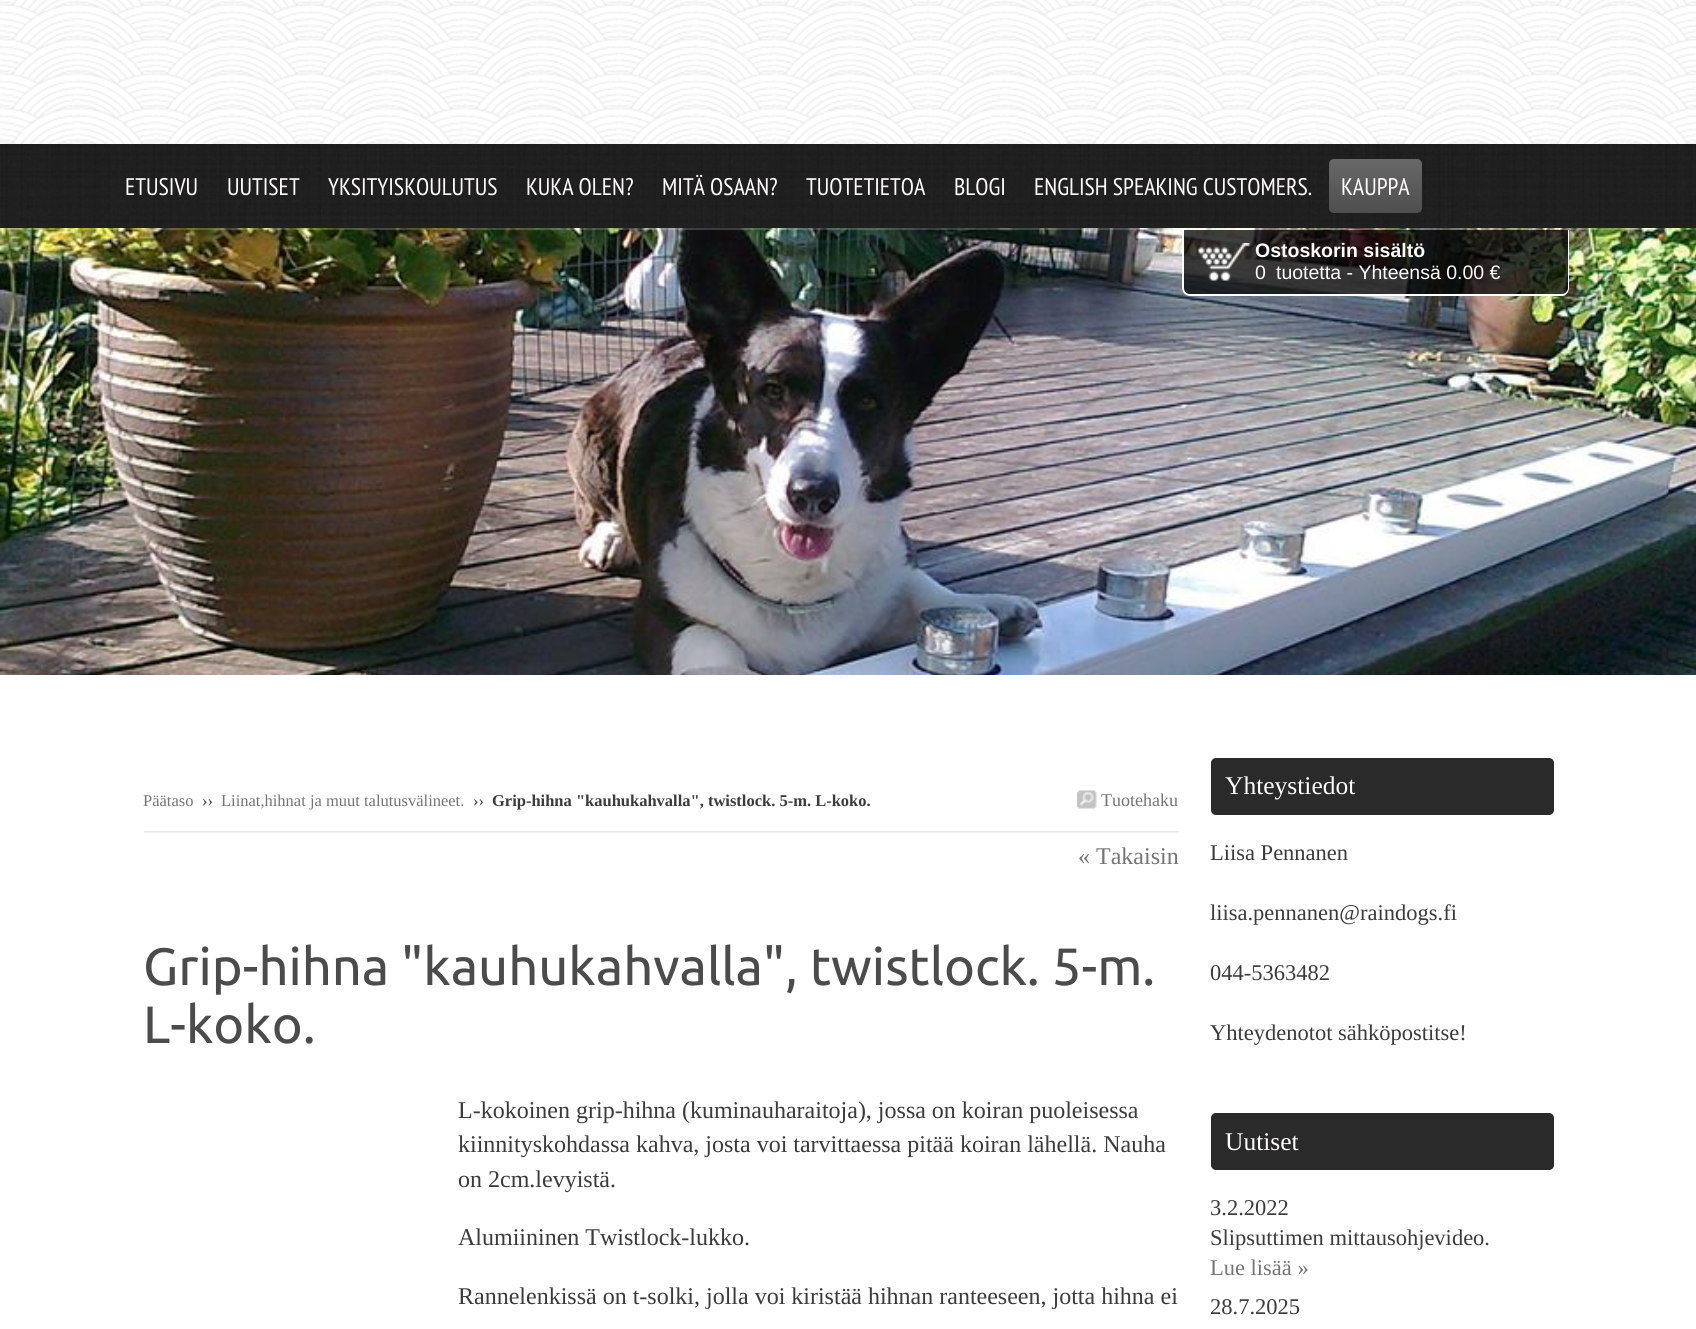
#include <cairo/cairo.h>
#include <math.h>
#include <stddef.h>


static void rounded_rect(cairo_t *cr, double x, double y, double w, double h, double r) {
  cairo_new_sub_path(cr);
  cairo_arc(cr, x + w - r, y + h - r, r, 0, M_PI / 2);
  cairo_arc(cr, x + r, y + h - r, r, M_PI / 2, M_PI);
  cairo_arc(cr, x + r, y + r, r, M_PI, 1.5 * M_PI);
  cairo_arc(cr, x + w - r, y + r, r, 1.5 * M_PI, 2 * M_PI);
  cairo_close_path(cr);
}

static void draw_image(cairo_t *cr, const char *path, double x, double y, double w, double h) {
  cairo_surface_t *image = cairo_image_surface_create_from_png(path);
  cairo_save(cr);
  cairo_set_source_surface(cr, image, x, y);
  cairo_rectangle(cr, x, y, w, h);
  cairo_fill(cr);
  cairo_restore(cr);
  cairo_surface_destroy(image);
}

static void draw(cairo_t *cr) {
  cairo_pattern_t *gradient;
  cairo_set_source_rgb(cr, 1, 1, 1);
  cairo_paint(cr);
  draw_image(cr, "images/1.png", 0, 144, 1696, 84);
  draw_image(cr, "images/2.png", 0, 0, 1696, 144);
  gradient = cairo_pattern_create_linear(1376, 159, 1376, 213);
  cairo_pattern_add_color_stop_rgba(gradient, 0, 104 / 255.0, 104 / 255.0, 104 / 255.0, 1);
  cairo_pattern_add_color_stop_rgba(gradient, 1, 78 / 255.0, 78 / 255.0, 78 / 255.0, 1);
  cairo_set_source(cr, gradient);
  cairo_pattern_destroy(gradient);
  rounded_rect(cr, 1329, 159, 93, 54, 5);
  cairo_fill(cr);
  draw_image(cr, "images/3.png", 0, 228, 1696, 447);
  cairo_set_source_rgba(cr, 1, 1, 1, 0.19);
  cairo_rectangle(cr, 0, 228, 1696, 2);
  cairo_fill(cr);
  cairo_set_source_rgba(cr, 0, 0, 0, 0.75);
  cairo_new_path(cr);
  cairo_move_to(cr, 1182, 230);
  cairo_line_to(cr, 1569, 230);
  cairo_line_to(cr, 1569, 288);
  cairo_curve_to(cr, 1569, 292.5, 1565.5, 296, 1561, 296);
  cairo_line_to(cr, 1190, 296);
  cairo_curve_to(cr, 1185.5, 296, 1182, 292.5, 1182, 288);
  cairo_close_path(cr);
  cairo_fill(cr);
  cairo_set_source_rgb(cr, 1, 1, 1);
  cairo_set_fill_rule(cr, CAIRO_FILL_RULE_EVEN_ODD);
  cairo_new_path(cr);
  cairo_move_to(cr, 1182, 230);
  cairo_line_to(cr, 1569, 230);
  cairo_line_to(cr, 1569, 288);
  cairo_curve_to(cr, 1569, 292, 1566, 296, 1562, 296);
  cairo_line_to(cr, 1190, 296);
  cairo_curve_to(cr, 1185, 296, 1182, 292, 1182, 288);
  cairo_close_path(cr);
  cairo_move_to(cr, 1184, 230);
  cairo_line_to(cr, 1568, 230);
  cairo_line_to(cr, 1568, 288);
  cairo_curve_to(cr, 1568, 291, 1565, 294, 1562, 294);
  cairo_line_to(cr, 1190, 294);
  cairo_curve_to(cr, 1186, 294, 1184, 291, 1184, 288);
  cairo_close_path(cr);
  cairo_fill(cr);
  draw_image(cr, "images/4.png", 1198, 243, 52, 38);
  draw_image(cr, "images/5.png", 1077, 790, 20, 19);
  draw_image(cr, "images/6.png", 144, 831, 1035, 2);
  cairo_set_source_rgb(cr, 42 / 255.0, 42 / 255.0, 42 / 255.0);
  rounded_rect(cr, 1211, 758, 343, 57, 5);
  cairo_fill(cr);
  rounded_rect(cr, 1211, 1113, 343, 57, 5);
  cairo_fill(cr);
  cairo_select_font_face(cr, "PT Sans Narrow", CAIRO_FONT_SLANT_NORMAL, CAIRO_FONT_WEIGHT_NORMAL);
  cairo_set_font_size(cr, 24);
  cairo_set_source_rgb(cr, 1, 252 / 255.0, 252 / 255.0);
  cairo_move_to(cr, 125, 195);
  cairo_show_text(cr, "ETUSIVU");
  cairo_move_to(cr, 227, 195);
  cairo_show_text(cr, "UUTISET");
  cairo_move_to(cr, 328, 195);
  cairo_show_text(cr, "YKSITYISKOULUTUS");
  cairo_move_to(cr, 526, 195);
  cairo_show_text(cr, "KUKA OLEN?");
  cairo_move_to(cr, 662, 195);
  cairo_show_text(cr, "MITÄ OSAAN?");
  cairo_move_to(cr, 806, 195);
  cairo_show_text(cr, "TUOTETIETOA");
  cairo_move_to(cr, 954, 195);
  cairo_show_text(cr, "BLOGI");
  cairo_move_to(cr, 1034, 195);
  cairo_show_text(cr, "ENGLISH SPEAKING CUSTOMERS.");
  cairo_move_to(cr, 1341, 195);
  cairo_show_text(cr, "KAUPPA");
  cairo_select_font_face(cr, "Liberation Sans", CAIRO_FONT_SLANT_NORMAL, CAIRO_FONT_WEIGHT_BOLD);
  cairo_set_font_size(cr, 19.5);
  cairo_move_to(cr, 1255, 257);
  cairo_show_text(cr, "Ostoskorin sisältö");
  cairo_select_font_face(cr, "Liberation Sans", CAIRO_FONT_SLANT_NORMAL, CAIRO_FONT_WEIGHT_NORMAL);
  cairo_move_to(cr, 1255, 279);
  cairo_show_text(cr, "0");
  cairo_move_to(cr, 1276, 279);
  cairo_show_text(cr, "tuotetta - Yhteensä 0.00 €");
  cairo_select_font_face(cr, "Liberation Serif", CAIRO_FONT_SLANT_NORMAL, CAIRO_FONT_WEIGHT_NORMAL);
  cairo_set_font_size(cr, 16.5);
  cairo_set_source_rgb(cr, 117 / 255.0, 117 / 255.0, 117 / 255.0);
  cairo_move_to(cr, 143, 806);
  cairo_show_text(cr, "Päätaso");
  cairo_set_source_rgb(cr, 59 / 255.0, 59 / 255.0, 59 / 255.0);
  cairo_move_to(cr, 202, 806);
  cairo_show_text(cr, "››");
  cairo_set_source_rgb(cr, 117 / 255.0, 117 / 255.0, 117 / 255.0);
  cairo_move_to(cr, 221, 806);
  cairo_show_text(cr, "Liinat,hihnat ja muut talutusvälineet.");
  cairo_set_source_rgb(cr, 59 / 255.0, 59 / 255.0, 59 / 255.0);
  cairo_move_to(cr, 473, 806);
  cairo_show_text(cr, "››");
  cairo_select_font_face(cr, "Liberation Serif", CAIRO_FONT_SLANT_NORMAL, CAIRO_FONT_WEIGHT_BOLD);
  cairo_move_to(cr, 492, 806);
  cairo_show_text(cr, "Grip-hihna \"kauhukahvalla\", twistlock. 5-m. L-koko.");
  cairo_select_font_face(cr, "Liberation Serif", CAIRO_FONT_SLANT_NORMAL, CAIRO_FONT_WEIGHT_NORMAL);
  cairo_set_font_size(cr, 18);
  cairo_set_source_rgb(cr, 117 / 255.0, 117 / 255.0, 117 / 255.0);
  cairo_move_to(cr, 1101, 806);
  cairo_show_text(cr, "Tuotehaku");
  cairo_set_font_size(cr, 24);
  cairo_move_to(cr, 1078, 864);
  cairo_show_text(cr, "« Takaisin");
  cairo_select_font_face(cr, "Ubuntu", CAIRO_FONT_SLANT_NORMAL, CAIRO_FONT_WEIGHT_NORMAL);
  cairo_set_font_size(cr, 52.5);
  cairo_set_source_rgb(cr, 75 / 255.0, 75 / 255.0, 75 / 255.0);
  cairo_move_to(cr, 143, 985);
  cairo_show_text(cr, "Grip-hihna \"kauhukahvalla\", twistlock. 5-m.");
  cairo_move_to(cr, 143, 1043);
  cairo_show_text(cr, "L-koko.");
  cairo_select_font_face(cr, "Liberation Serif", CAIRO_FONT_SLANT_NORMAL, CAIRO_FONT_WEIGHT_NORMAL);
  cairo_set_font_size(cr, 24);
  cairo_set_source_rgb(cr, 59 / 255.0, 59 / 255.0, 59 / 255.0);
  cairo_move_to(cr, 458, 1118);
  cairo_show_text(cr, "L-kokoinen grip-hihna (kuminauharaitoja), jossa on koiran puoleisessa");
  cairo_move_to(cr, 458, 1152);
  cairo_show_text(cr, "kiinnityskohdassa kahva, josta voi tarvittaessa pitää koiran lähellä. Nauha");
  cairo_move_to(cr, 458, 1187);
  cairo_show_text(cr, "on 2cm.levyistä.");
  cairo_move_to(cr, 458, 1245);
  cairo_show_text(cr, "Alumiininen Twistlock-lukko.");
  cairo_move_to(cr, 458, 1304);
  cairo_show_text(cr, "Rannelenkissä on t-solki, jolla voi kiristää hihnan ranteeseen, jotta hihna ei");
  cairo_set_font_size(cr, 25.5);
  cairo_set_source_rgb(cr, 1, 252 / 255.0, 252 / 255.0);
  cairo_move_to(cr, 1225, 794);
  cairo_show_text(cr, "Yhteystiedot");
  cairo_set_font_size(cr, 22.5);
  cairo_set_source_rgb(cr, 59 / 255.0, 59 / 255.0, 59 / 255.0);
  cairo_move_to(cr, 1210, 860);
  cairo_show_text(cr, "Liisa Pennanen");
  cairo_move_to(cr, 1210, 920);
  cairo_show_text(cr, "liisa.pennanen@raindogs.fi");
  cairo_move_to(cr, 1210, 980);
  cairo_show_text(cr, "044-5363482");
  cairo_move_to(cr, 1210, 1040);
  cairo_show_text(cr, "Yhteydenotot sähköpostitse!");
  cairo_set_font_size(cr, 25.5);
  cairo_set_source_rgb(cr, 1, 252 / 255.0, 252 / 255.0);
  cairo_move_to(cr, 1225, 1150);
  cairo_show_text(cr, "Uutiset");
  cairo_set_font_size(cr, 22.5);
  cairo_set_source_rgb(cr, 59 / 255.0, 59 / 255.0, 59 / 255.0);
  cairo_move_to(cr, 1210, 1215);
  cairo_show_text(cr, "3.2.2022");
  cairo_move_to(cr, 1210, 1245);
  cairo_show_text(cr, "Slipsuttimen mittausohjevideo.");
  cairo_set_source_rgb(cr, 117 / 255.0, 117 / 255.0, 117 / 255.0);
  cairo_move_to(cr, 1210, 1275);
  cairo_show_text(cr, "Lue lisää »");
  cairo_set_source_rgb(cr, 59 / 255.0, 59 / 255.0, 59 / 255.0);
  cairo_move_to(cr, 1210, 1314);
  cairo_show_text(cr, "28.7.2025");
}

int main(void) {
  cairo_surface_t *surface = cairo_image_surface_create(CAIRO_FORMAT_RGB24, 1696, 1329);
  cairo_t *cr = cairo_create(surface);
  cairo_font_options_t *options = cairo_font_options_create();
  cairo_font_options_set_hint_metrics(options, CAIRO_HINT_METRICS_OFF);
  cairo_font_options_set_hint_style(options, CAIRO_HINT_STYLE_NONE);
  cairo_set_font_options(cr, options);
  cairo_set_miter_limit(cr, 4);
  draw(cr);
  cairo_surface_write_to_png(surface, "out.png");
  cairo_font_options_destroy(options);
  cairo_destroy(cr);
  cairo_surface_destroy(surface);
  return 0;
}
